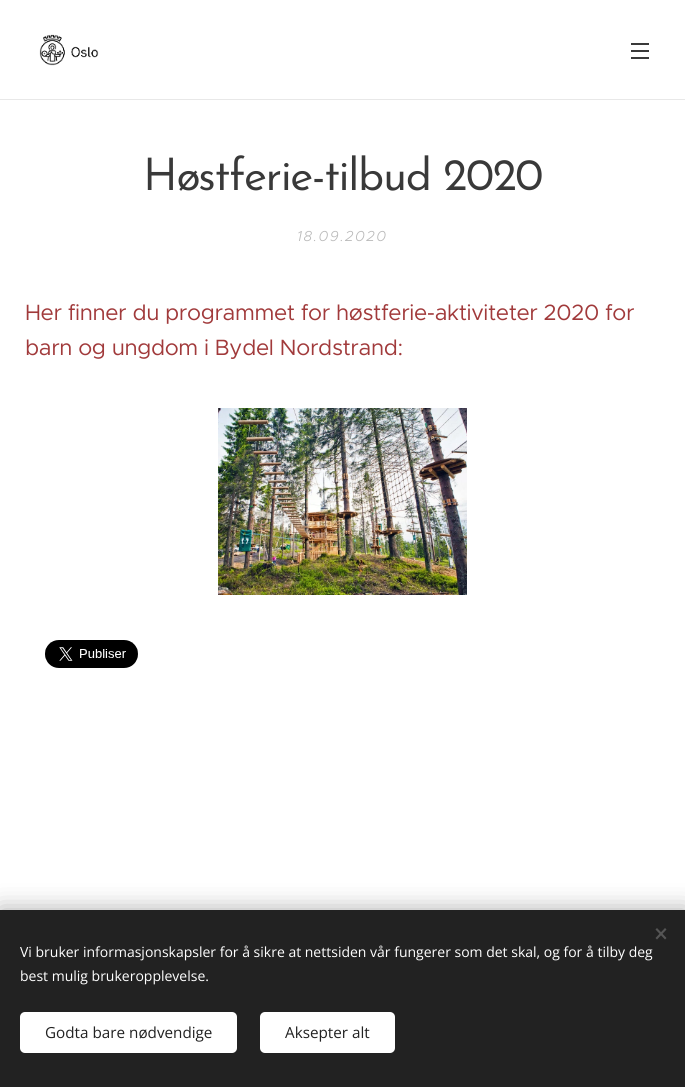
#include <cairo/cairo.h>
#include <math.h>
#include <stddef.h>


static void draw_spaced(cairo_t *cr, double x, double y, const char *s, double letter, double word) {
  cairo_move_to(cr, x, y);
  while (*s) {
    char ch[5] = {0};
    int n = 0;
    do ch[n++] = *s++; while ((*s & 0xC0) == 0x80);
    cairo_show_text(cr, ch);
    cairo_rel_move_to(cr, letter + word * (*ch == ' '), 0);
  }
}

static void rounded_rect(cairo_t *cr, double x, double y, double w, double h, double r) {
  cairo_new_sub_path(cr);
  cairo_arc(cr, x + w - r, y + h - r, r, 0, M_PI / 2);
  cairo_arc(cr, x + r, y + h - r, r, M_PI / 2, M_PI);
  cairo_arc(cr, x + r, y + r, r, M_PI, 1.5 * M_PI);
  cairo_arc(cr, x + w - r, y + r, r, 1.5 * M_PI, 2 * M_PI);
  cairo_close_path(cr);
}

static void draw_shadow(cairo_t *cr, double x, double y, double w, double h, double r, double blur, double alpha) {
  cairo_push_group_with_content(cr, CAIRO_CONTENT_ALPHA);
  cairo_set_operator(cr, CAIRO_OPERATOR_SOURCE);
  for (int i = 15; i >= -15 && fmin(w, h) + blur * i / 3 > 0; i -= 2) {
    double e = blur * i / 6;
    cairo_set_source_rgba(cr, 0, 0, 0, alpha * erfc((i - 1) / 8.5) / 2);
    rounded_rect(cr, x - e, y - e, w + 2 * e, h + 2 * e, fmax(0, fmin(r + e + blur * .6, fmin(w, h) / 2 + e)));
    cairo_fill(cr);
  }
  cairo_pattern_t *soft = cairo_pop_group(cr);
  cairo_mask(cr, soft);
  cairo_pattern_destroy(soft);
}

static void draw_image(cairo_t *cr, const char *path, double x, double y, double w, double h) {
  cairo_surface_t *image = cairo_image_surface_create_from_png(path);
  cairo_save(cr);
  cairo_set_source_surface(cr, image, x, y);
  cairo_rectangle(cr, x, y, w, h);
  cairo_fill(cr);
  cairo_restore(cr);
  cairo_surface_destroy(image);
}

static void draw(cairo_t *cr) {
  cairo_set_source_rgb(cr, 1, 1, 1);
  cairo_paint(cr);
  draw_image(cr, "images/1.png", 39, 34, 60, 32);
  cairo_set_source_rgb(cr, 57 / 255.0, 57 / 255.0, 57 / 255.0);
  cairo_rectangle(cr, 631, 50, 18, 2);
  cairo_fill(cr);
  cairo_rectangle(cr, 631, 43, 18, 2);
  cairo_fill(cr);
  cairo_rectangle(cr, 631, 57, 18, 2);
  cairo_fill(cr);
  cairo_set_source_rgb(cr, 232 / 255.0, 232 / 255.0, 232 / 255.0);
  cairo_rectangle(cr, 0, 99, 685, 1);
  cairo_fill(cr);
  draw_image(cr, "images/2.png", 218, 408, 249, 187);
  draw_image(cr, "images/3.png", 45, 640, 93, 28);
  cairo_set_source_rgb(cr, 0, 0, 0);
  draw_shadow(cr, 0, 910, 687, 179, 0, 12.5, 0.33);
  cairo_set_source_rgb(cr, 34 / 255.0, 34 / 255.0, 34 / 255.0);
  cairo_rectangle(cr, 0, 910, 685, 177);
  cairo_fill(cr);
  cairo_set_source_rgb(cr, 85 / 255.0, 85 / 255.0, 85 / 255.0);
  cairo_new_path(cr);
  cairo_move_to(cr, 655.5, 938);
  cairo_line_to(cr, 665, 928);
  cairo_line_to(cr, 666.5, 929.5);
  cairo_line_to(cr, 657, 939.5);
  cairo_close_path(cr);
  cairo_fill(cr);
  cairo_new_path(cr);
  cairo_move_to(cr, 657, 928);
  cairo_line_to(cr, 666.5, 938);
  cairo_line_to(cr, 665, 939.5);
  cairo_line_to(cr, 655.5, 929.5);
  cairo_close_path(cr);
  cairo_fill(cr);
  cairo_set_source_rgb(cr, 1, 1, 1);
  rounded_rect(cr, 20, 1012, 217, 41, 5);
  cairo_fill(cr);
  rounded_rect(cr, 260, 1012, 135, 41, 5);
  cairo_fill(cr);
  cairo_select_font_face(cr, "Josefin Sans", CAIRO_FONT_SLANT_NORMAL, CAIRO_FONT_WEIGHT_NORMAL);
  cairo_set_font_size(cr, 45);
  cairo_set_source_rgb(cr, 57 / 255.0, 57 / 255.0, 57 / 255.0);
  draw_spaced(cr, 143, 190, "Høstferie-tilbud 2020", -1.35, 0);
  cairo_select_font_face(cr, "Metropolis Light", CAIRO_FONT_SLANT_ITALIC, CAIRO_FONT_WEIGHT_NORMAL);
  cairo_set_font_size(cr, 14.5);
  cairo_set_source_rgb(cr, 186 / 255.0, 186 / 255.0, 186 / 255.0);
  draw_spaced(cr, 297, 241, "18.09.2020", 1.5, 0);
  cairo_select_font_face(cr, "Metropolis", CAIRO_FONT_SLANT_NORMAL, CAIRO_FONT_WEIGHT_NORMAL);
  cairo_set_font_size(cr, 22.2);
  cairo_set_source_rgb(cr, 161 / 255.0, 58 / 255.0, 59 / 255.0);
  draw_spaced(cr, 25, 320, "Her finner du programmet for høstferie-aktiviteter 2020 for", -0.37, 0);
  draw_spaced(cr, 25, 355, "barn og ungdom i Bydel Nordstrand:", -0.37, 0);
  cairo_select_font_face(cr, "Open Sans", CAIRO_FONT_SLANT_NORMAL, CAIRO_FONT_WEIGHT_NORMAL);
  cairo_set_font_size(cr, 14);
  cairo_set_source_rgb(cr, 1, 1, 1);
  cairo_move_to(cr, 20, 957);
  cairo_show_text(cr, "Vi bruker informasjonskapsler for å sikre at nettsiden vår fungerer som det skal, og for å tilby deg");
  cairo_move_to(cr, 20, 981);
  cairo_show_text(cr, "best mulig brukeropplevelse.");
  cairo_set_font_size(cr, 15.25);
  cairo_set_source_rgb(cr, 34 / 255.0, 34 / 255.0, 34 / 255.0);
  cairo_move_to(cr, 45, 1038);
  cairo_show_text(cr, "Godta bare nødvendige");
  cairo_move_to(cr, 285, 1038);
  cairo_show_text(cr, "Aksepter alt");
}

int main(void) {
  cairo_surface_t *surface = cairo_image_surface_create(CAIRO_FORMAT_RGB24, 685, 1087);
  cairo_t *cr = cairo_create(surface);
  cairo_font_options_t *options = cairo_font_options_create();
  cairo_font_options_set_hint_metrics(options, CAIRO_HINT_METRICS_OFF);
  cairo_font_options_set_hint_style(options, CAIRO_HINT_STYLE_NONE);
  cairo_set_font_options(cr, options);
  cairo_set_miter_limit(cr, 4);
  draw(cr);
  cairo_surface_write_to_png(surface, "out.png");
  cairo_font_options_destroy(options);
  cairo_destroy(cr);
  cairo_surface_destroy(surface);
  return 0;
}
